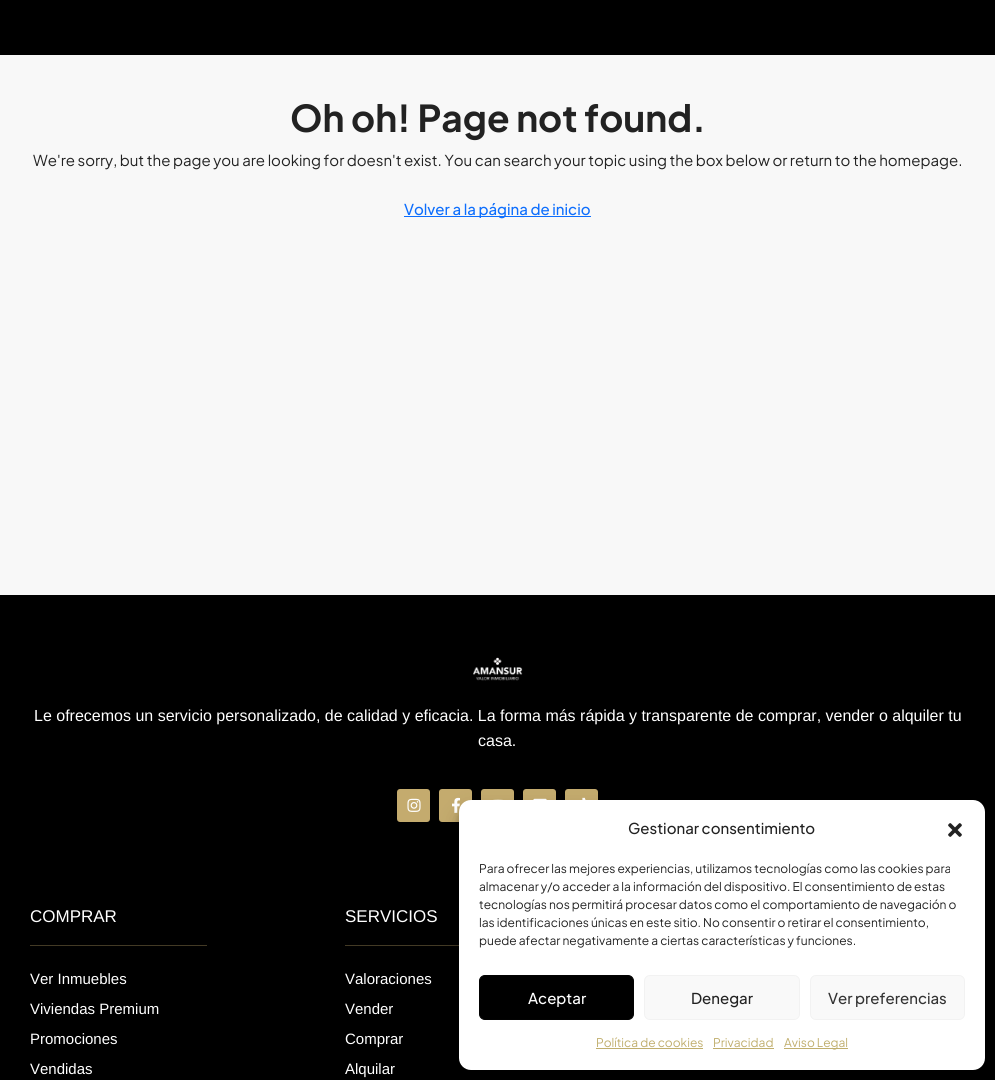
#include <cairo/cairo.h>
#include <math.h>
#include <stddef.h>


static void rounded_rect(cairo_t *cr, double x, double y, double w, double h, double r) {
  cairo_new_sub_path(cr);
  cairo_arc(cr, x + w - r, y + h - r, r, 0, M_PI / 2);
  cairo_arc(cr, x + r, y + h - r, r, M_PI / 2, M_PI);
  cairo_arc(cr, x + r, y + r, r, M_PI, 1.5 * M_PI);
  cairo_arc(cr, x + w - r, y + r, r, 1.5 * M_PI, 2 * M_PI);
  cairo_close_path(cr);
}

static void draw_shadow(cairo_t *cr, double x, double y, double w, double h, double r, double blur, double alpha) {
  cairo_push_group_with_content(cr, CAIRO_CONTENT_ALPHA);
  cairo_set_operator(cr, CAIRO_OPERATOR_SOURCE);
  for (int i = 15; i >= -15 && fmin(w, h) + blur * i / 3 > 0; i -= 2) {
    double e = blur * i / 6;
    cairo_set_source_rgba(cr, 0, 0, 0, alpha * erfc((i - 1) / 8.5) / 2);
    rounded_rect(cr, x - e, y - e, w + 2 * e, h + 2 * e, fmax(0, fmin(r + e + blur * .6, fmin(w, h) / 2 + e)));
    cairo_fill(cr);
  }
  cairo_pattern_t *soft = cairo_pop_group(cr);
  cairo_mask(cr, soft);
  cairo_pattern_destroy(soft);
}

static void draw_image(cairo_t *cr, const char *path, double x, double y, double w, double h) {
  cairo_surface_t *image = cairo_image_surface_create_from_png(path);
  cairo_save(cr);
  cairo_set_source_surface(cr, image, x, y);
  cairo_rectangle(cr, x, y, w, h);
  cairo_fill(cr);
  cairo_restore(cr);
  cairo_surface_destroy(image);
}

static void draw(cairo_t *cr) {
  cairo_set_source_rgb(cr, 248 / 255.0, 248 / 255.0, 248 / 255.0);
  cairo_paint(cr);
  cairo_set_source_rgb(cr, 0, 0, 0);
  cairo_rectangle(cr, 0, 0, 995, 55);
  cairo_fill(cr);
  cairo_set_source_rgb(cr, 13 / 255.0, 110 / 255.0, 253 / 255.0);
  cairo_rectangle(cr, 404, 216, 187, 1);
  cairo_fill(cr);
  cairo_set_source_rgb(cr, 0, 0, 0);
  cairo_rectangle(cr, 0, 595, 995, 485);
  cairo_fill(cr);
  draw_image(cr, "images/1.png", 473, 657, 50, 24);
  cairo_set_source_rgb(cr, 196 / 255.0, 171 / 255.0, 110 / 255.0);
  rounded_rect(cr, 397, 789, 33, 33, 3);
  cairo_fill(cr);
  draw_image(cr, "images/2.png", 407, 798, 14, 14);
  rounded_rect(cr, 439, 789, 33, 33, 3);
  cairo_fill(cr);
  draw_image(cr, "images/3.png", 452, 797, 8, 16);
  rounded_rect(cr, 481, 789, 33, 33, 3);
  cairo_fill(cr);
  draw_image(cr, "images/4.png", 493, 799, 10, 1);
  rounded_rect(cr, 523, 789, 33, 33, 3);
  cairo_fill(cr);
  draw_image(cr, "images/5.png", 533, 798, 14, 2);
  rounded_rect(cr, 565, 789, 33, 33, 3);
  cairo_fill(cr);
  draw_image(cr, "images/6.png", 582, 797, 4, 3);
  cairo_set_source_rgb(cr, 67 / 255.0, 58 / 255.0, 37 / 255.0);
  cairo_rectangle(cr, 30, 945, 177, 1);
  cairo_fill(cr);
  cairo_rectangle(cr, 345, 945, 114, 1);
  cairo_fill(cr);
  cairo_set_source_rgb(cr, 0, 0, 0);
  draw_shadow(cr, 459, 806, 526, 270, 12, 3, 0.23);
  draw_shadow(cr, 459, 810, 526, 270, 12, 10, 0.19);
  cairo_set_source_rgb(cr, 1, 1, 1);
  rounded_rect(cr, 459, 800, 526, 270, 12);
  cairo_fill(cr);
  draw_image(cr, "images/7.png", 948, 823, 14, 14);
  cairo_set_source_rgb(cr, 0, 0, 0);
  rounded_rect(cr, 479.5, 975.5, 154, 44, 5.5);
  cairo_fill_preserve(cr);
  cairo_set_source_rgb(cr, 2 / 255.0, 2 / 255.0, 2 / 255.0);
  cairo_set_line_width(cr, 1);
  cairo_stroke(cr);
  cairo_set_source_rgb(cr, 249 / 255.0, 249 / 255.0, 249 / 255.0);
  rounded_rect(cr, 644.5, 975.5, 155, 44, 5.5);
  cairo_fill_preserve(cr);
  cairo_set_source_rgb(cr, 242 / 255.0, 242 / 255.0, 242 / 255.0);
  cairo_stroke(cr);
  cairo_set_source_rgb(cr, 249 / 255.0, 249 / 255.0, 249 / 255.0);
  rounded_rect(cr, 810.5, 975.5, 154, 44, 5.5);
  cairo_fill_preserve(cr);
  cairo_set_source_rgb(cr, 242 / 255.0, 242 / 255.0, 242 / 255.0);
  cairo_stroke(cr);
  cairo_set_source_rgb(cr, 192 / 255.0, 174 / 255.0, 109 / 255.0);
  cairo_rectangle(cr, 596, 1048, 107, 1);
  cairo_fill(cr);
  cairo_rectangle(cr, 713, 1048, 61, 1);
  cairo_fill(cr);
  cairo_rectangle(cr, 784, 1048, 64, 1);
  cairo_fill(cr);
  cairo_select_font_face(cr, "Plus Jakarta Sans", CAIRO_FONT_SLANT_NORMAL, CAIRO_FONT_WEIGHT_BOLD);
  cairo_set_font_size(cr, 37);
  cairo_set_source_rgb(cr, 34 / 255.0, 34 / 255.0, 34 / 255.0);
  cairo_move_to(cr, 290, 132);
  cairo_show_text(cr, "Oh oh! Page not found.");
  cairo_select_font_face(cr, "Plus Jakarta Sans", CAIRO_FONT_SLANT_NORMAL, CAIRO_FONT_WEIGHT_NORMAL);
  cairo_set_font_size(cr, 15);
  cairo_move_to(cr, 33, 166);
  cairo_show_text(cr, "We're sorry, but the page you are looking for doesn't exist. You can search your topic using the box below or return to the homepage.");
  cairo_select_font_face(cr, "Plus Jakarta Sans Medium", CAIRO_FONT_SLANT_NORMAL, CAIRO_FONT_WEIGHT_NORMAL);
  cairo_set_source_rgb(cr, 13 / 255.0, 110 / 255.0, 253 / 255.0);
  cairo_move_to(cr, 404, 215);
  cairo_show_text(cr, "Volver a la página de inicio");
  cairo_select_font_face(cr, "Liberation Sans", CAIRO_FONT_SLANT_NORMAL, CAIRO_FONT_WEIGHT_NORMAL);
  cairo_set_font_size(cr, 16);
  cairo_set_source_rgb(cr, 1, 1, 1);
  cairo_move_to(cr, 34, 721);
  cairo_show_text(cr, "Le ofrecemos un servicio personalizado, de calidad y eficacia. La forma más rápida y transparente de comprar, vender o alquiler tu");
  cairo_move_to(cr, 478, 746);
  cairo_show_text(cr, "casa.");
  cairo_set_font_size(cr, 17);
  cairo_move_to(cr, 30, 922);
  cairo_show_text(cr, "COMPRAR");
  cairo_set_font_size(cr, 15);
  cairo_move_to(cr, 30, 984);
  cairo_show_text(cr, "Ver Inmuebles");
  cairo_move_to(cr, 30, 1014);
  cairo_show_text(cr, "Viviendas Premium");
  cairo_move_to(cr, 30, 1044);
  cairo_show_text(cr, "Promociones");
  cairo_move_to(cr, 30, 1074);
  cairo_show_text(cr, "Vendidas");
  cairo_set_font_size(cr, 17);
  cairo_move_to(cr, 345, 922);
  cairo_show_text(cr, "SERVICIOS");
  cairo_set_font_size(cr, 15);
  cairo_move_to(cr, 345, 984);
  cairo_show_text(cr, "Valoraciones");
  cairo_move_to(cr, 345, 1014);
  cairo_show_text(cr, "Vender");
  cairo_move_to(cr, 345, 1044);
  cairo_show_text(cr, "Comprar");
  cairo_move_to(cr, 345, 1074);
  cairo_show_text(cr, "Alquilar");
  cairo_select_font_face(cr, "Plus Jakarta Sans Medium", CAIRO_FONT_SLANT_NORMAL, CAIRO_FONT_WEIGHT_NORMAL);
  cairo_set_source_rgb(cr, 34 / 255.0, 34 / 255.0, 34 / 255.0);
  cairo_move_to(cr, 628, 834);
  cairo_show_text(cr, "Gestionar consentimiento");
  cairo_select_font_face(cr, "Plus Jakarta Sans", CAIRO_FONT_SLANT_NORMAL, CAIRO_FONT_WEIGHT_NORMAL);
  cairo_set_font_size(cr, 12);
  cairo_move_to(cr, 479, 873);
  cairo_show_text(cr, "Para ofrecer las mejores experiencias, utilizamos tecnologías como las cookies para");
  cairo_move_to(cr, 479, 891);
  cairo_show_text(cr, "almacenar y/o acceder a la información del dispositivo. El consentimiento de estas");
  cairo_move_to(cr, 479, 909);
  cairo_show_text(cr, "tecnologías nos permitirá procesar datos como el comportamiento de navegación o");
  cairo_move_to(cr, 479, 927);
  cairo_show_text(cr, "las identificaciones únicas en este sitio. No consentir o retirar el consentimiento,");
  cairo_move_to(cr, 479, 945);
  cairo_show_text(cr, "puede afectar negativamente a ciertas características y funciones.");
  cairo_select_font_face(cr, "Plus Jakarta Sans Medium", CAIRO_FONT_SLANT_NORMAL, CAIRO_FONT_WEIGHT_NORMAL);
  cairo_set_font_size(cr, 15);
  cairo_set_source_rgb(cr, 1, 1, 1);
  cairo_move_to(cr, 528, 1004);
  cairo_show_text(cr, "Aceptar");
  cairo_set_source_rgb(cr, 34 / 255.0, 34 / 255.0, 34 / 255.0);
  cairo_move_to(cr, 691, 1004);
  cairo_show_text(cr, "Denegar");
  cairo_set_source_rgb(cr, 51 / 255.0, 51 / 255.0, 51 / 255.0);
  cairo_move_to(cr, 828, 1004);
  cairo_show_text(cr, "Ver preferencias");
  cairo_select_font_face(cr, "Plus Jakarta Sans", CAIRO_FONT_SLANT_NORMAL, CAIRO_FONT_WEIGHT_NORMAL);
  cairo_set_font_size(cr, 12);
  cairo_set_source_rgb(cr, 192 / 255.0, 174 / 255.0, 109 / 255.0);
  cairo_move_to(cr, 596, 1047);
  cairo_show_text(cr, "Política de cookies");
  cairo_move_to(cr, 713, 1047);
  cairo_show_text(cr, "Privacidad");
  cairo_move_to(cr, 784, 1047);
  cairo_show_text(cr, "Aviso Legal");
}

int main(void) {
  cairo_surface_t *surface = cairo_image_surface_create(CAIRO_FORMAT_RGB24, 995, 1080);
  cairo_t *cr = cairo_create(surface);
  cairo_font_options_t *options = cairo_font_options_create();
  cairo_font_options_set_hint_metrics(options, CAIRO_HINT_METRICS_OFF);
  cairo_font_options_set_hint_style(options, CAIRO_HINT_STYLE_NONE);
  cairo_set_font_options(cr, options);
  cairo_set_miter_limit(cr, 4);
  draw(cr);
  cairo_surface_write_to_png(surface, "out.png");
  cairo_font_options_destroy(options);
  cairo_destroy(cr);
  cairo_surface_destroy(surface);
  return 0;
}
